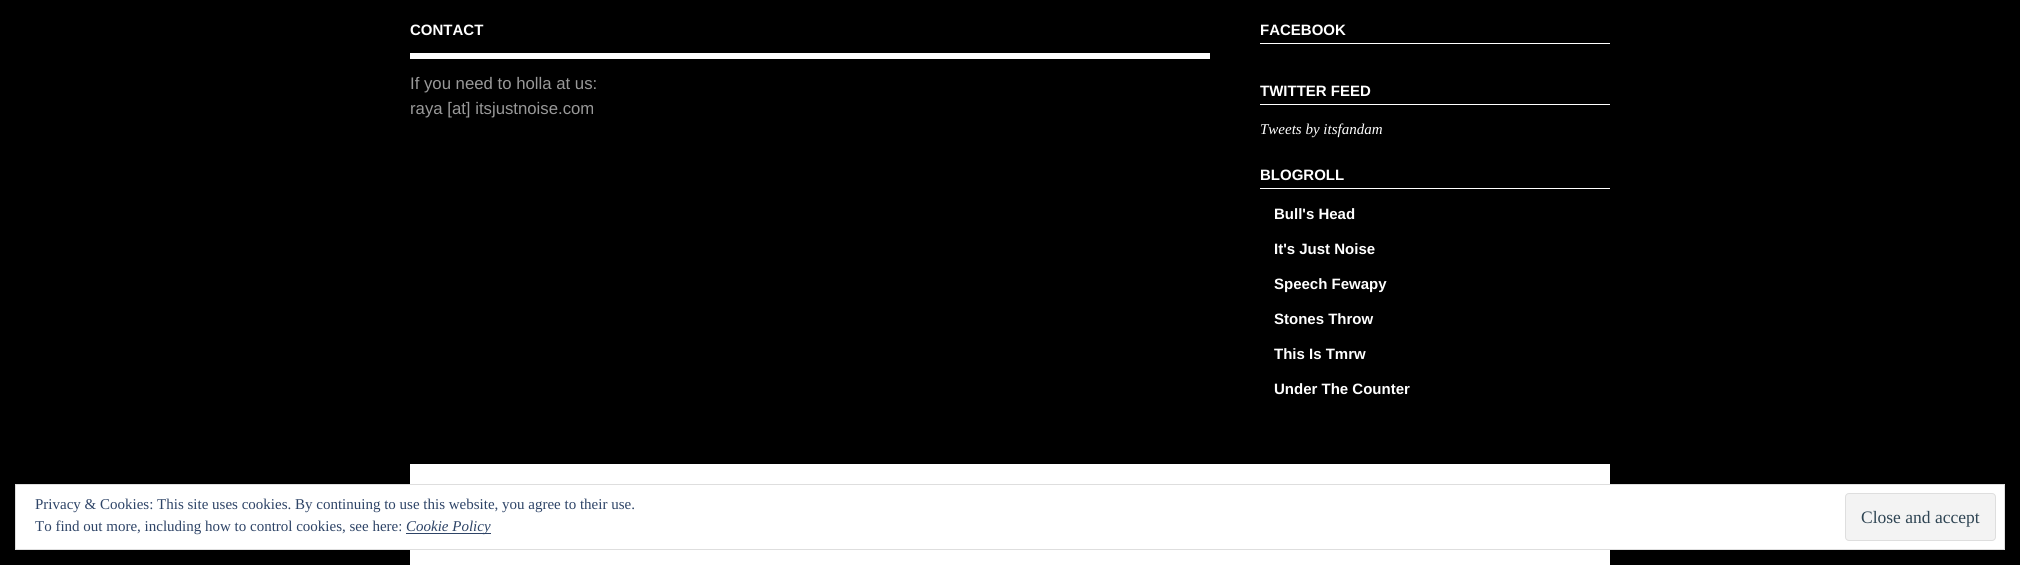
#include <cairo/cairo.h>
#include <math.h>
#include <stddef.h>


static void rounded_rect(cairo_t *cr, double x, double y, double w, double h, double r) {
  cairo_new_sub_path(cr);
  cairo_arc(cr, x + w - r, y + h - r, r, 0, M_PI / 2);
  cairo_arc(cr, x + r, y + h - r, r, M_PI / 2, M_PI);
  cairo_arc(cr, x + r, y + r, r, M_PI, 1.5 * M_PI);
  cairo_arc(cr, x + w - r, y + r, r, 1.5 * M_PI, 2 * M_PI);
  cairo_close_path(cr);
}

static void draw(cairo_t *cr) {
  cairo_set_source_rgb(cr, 0, 0, 0);
  cairo_paint(cr);
  cairo_set_source_rgb(cr, 1, 1, 1);
  cairo_rectangle(cr, 410, 53, 800, 6);
  cairo_fill(cr);
  cairo_rectangle(cr, 1260, 43, 350, 1);
  cairo_fill(cr);
  cairo_rectangle(cr, 1260, 104, 350, 1);
  cairo_fill(cr);
  cairo_rectangle(cr, 1260, 188, 350, 1);
  cairo_fill(cr);
  cairo_rectangle(cr, 410, 464, 1200, 20);
  cairo_fill(cr);
  cairo_rectangle(cr, 410, 550, 1200, 15);
  cairo_fill(cr);
  cairo_rectangle(cr, 15.5, 484.5, 1989, 65);
  cairo_fill_preserve(cr);
  cairo_set_source_rgb(cr, 222 / 255.0, 222 / 255.0, 222 / 255.0);
  cairo_set_line_width(cr, 1);
  cairo_stroke(cr);
  cairo_set_source_rgb(cr, 46 / 255.0, 68 / 255.0, 103 / 255.0);
  cairo_rectangle(cr, 406, 533, 85, 1);
  cairo_fill(cr);
  cairo_set_source_rgb(cr, 243 / 255.0, 243 / 255.0, 243 / 255.0);
  rounded_rect(cr, 1845.5, 493.5, 150, 47, 3.5);
  cairo_fill_preserve(cr);
  cairo_set_source_rgb(cr, 222 / 255.0, 222 / 255.0, 222 / 255.0);
  cairo_stroke(cr);
  cairo_select_font_face(cr, "Liberation Sans", CAIRO_FONT_SLANT_NORMAL, CAIRO_FONT_WEIGHT_BOLD);
  cairo_set_font_size(cr, 15);
  cairo_set_source_rgb(cr, 1, 1, 1);
  cairo_move_to(cr, 410, 35);
  cairo_show_text(cr, "CONTACT");
  cairo_select_font_face(cr, "Liberation Sans", CAIRO_FONT_SLANT_NORMAL, CAIRO_FONT_WEIGHT_NORMAL);
  cairo_set_font_size(cr, 16.75);
  cairo_set_source_rgb(cr, 153 / 255.0, 153 / 255.0, 153 / 255.0);
  cairo_move_to(cr, 410, 89);
  cairo_show_text(cr, "If you need to holla at us:");
  cairo_move_to(cr, 410, 114);
  cairo_show_text(cr, "raya [at] itsjustnoise.com");
  cairo_select_font_face(cr, "Liberation Sans", CAIRO_FONT_SLANT_NORMAL, CAIRO_FONT_WEIGHT_BOLD);
  cairo_set_font_size(cr, 15);
  cairo_set_source_rgb(cr, 1, 1, 1);
  cairo_move_to(cr, 1260, 35);
  cairo_show_text(cr, "FACEBOOK");
  cairo_move_to(cr, 1260, 96);
  cairo_show_text(cr, "TWITTER FEED");
  cairo_select_font_face(cr, "Liberation Serif", CAIRO_FONT_SLANT_ITALIC, CAIRO_FONT_WEIGHT_NORMAL);
  cairo_move_to(cr, 1260, 134);
  cairo_show_text(cr, "Tweets by itsfandam");
  cairo_select_font_face(cr, "Liberation Sans", CAIRO_FONT_SLANT_NORMAL, CAIRO_FONT_WEIGHT_BOLD);
  cairo_move_to(cr, 1260, 180);
  cairo_show_text(cr, "BLOGROLL");
  cairo_move_to(cr, 1274, 219);
  cairo_show_text(cr, "Bull's Head");
  cairo_move_to(cr, 1274, 254);
  cairo_show_text(cr, "It's Just Noise");
  cairo_move_to(cr, 1274, 289);
  cairo_show_text(cr, "Speech Fewapy");
  cairo_move_to(cr, 1274, 324);
  cairo_show_text(cr, "Stones Throw");
  cairo_move_to(cr, 1274, 359);
  cairo_show_text(cr, "This Is Tmrw");
  cairo_move_to(cr, 1274, 394);
  cairo_show_text(cr, "Under The Counter");
  cairo_select_font_face(cr, "Liberation Serif", CAIRO_FONT_SLANT_NORMAL, CAIRO_FONT_WEIGHT_NORMAL);
  cairo_set_source_rgb(cr, 46 / 255.0, 68 / 255.0, 103 / 255.0);
  cairo_move_to(cr, 35, 509);
  cairo_show_text(cr, "Privacy & Cookies: This site uses cookies. By continuing to use this website, you agree to their use.");
  cairo_move_to(cr, 35, 531);
  cairo_show_text(cr, "To find out more, including how to control cookies, see here:");
  cairo_select_font_face(cr, "Liberation Serif", CAIRO_FONT_SLANT_ITALIC, CAIRO_FONT_WEIGHT_NORMAL);
  cairo_move_to(cr, 406, 531);
  cairo_show_text(cr, "Cookie Policy");
  cairo_select_font_face(cr, "Liberation Serif", CAIRO_FONT_SLANT_NORMAL, CAIRO_FONT_WEIGHT_NORMAL);
  cairo_set_font_size(cr, 17.5);
  cairo_set_source_rgb(cr, 46 / 255.0, 68 / 255.0, 83 / 255.0);
  cairo_move_to(cr, 1861, 523);
  cairo_show_text(cr, "Close and accept");
}

int main(void) {
  cairo_surface_t *surface = cairo_image_surface_create(CAIRO_FORMAT_RGB24, 2020, 565);
  cairo_t *cr = cairo_create(surface);
  cairo_font_options_t *options = cairo_font_options_create();
  cairo_font_options_set_hint_metrics(options, CAIRO_HINT_METRICS_OFF);
  cairo_font_options_set_hint_style(options, CAIRO_HINT_STYLE_NONE);
  cairo_set_font_options(cr, options);
  cairo_set_miter_limit(cr, 4);
  draw(cr);
  cairo_surface_write_to_png(surface, "out.png");
  cairo_font_options_destroy(options);
  cairo_destroy(cr);
  cairo_surface_destroy(surface);
  return 0;
}
